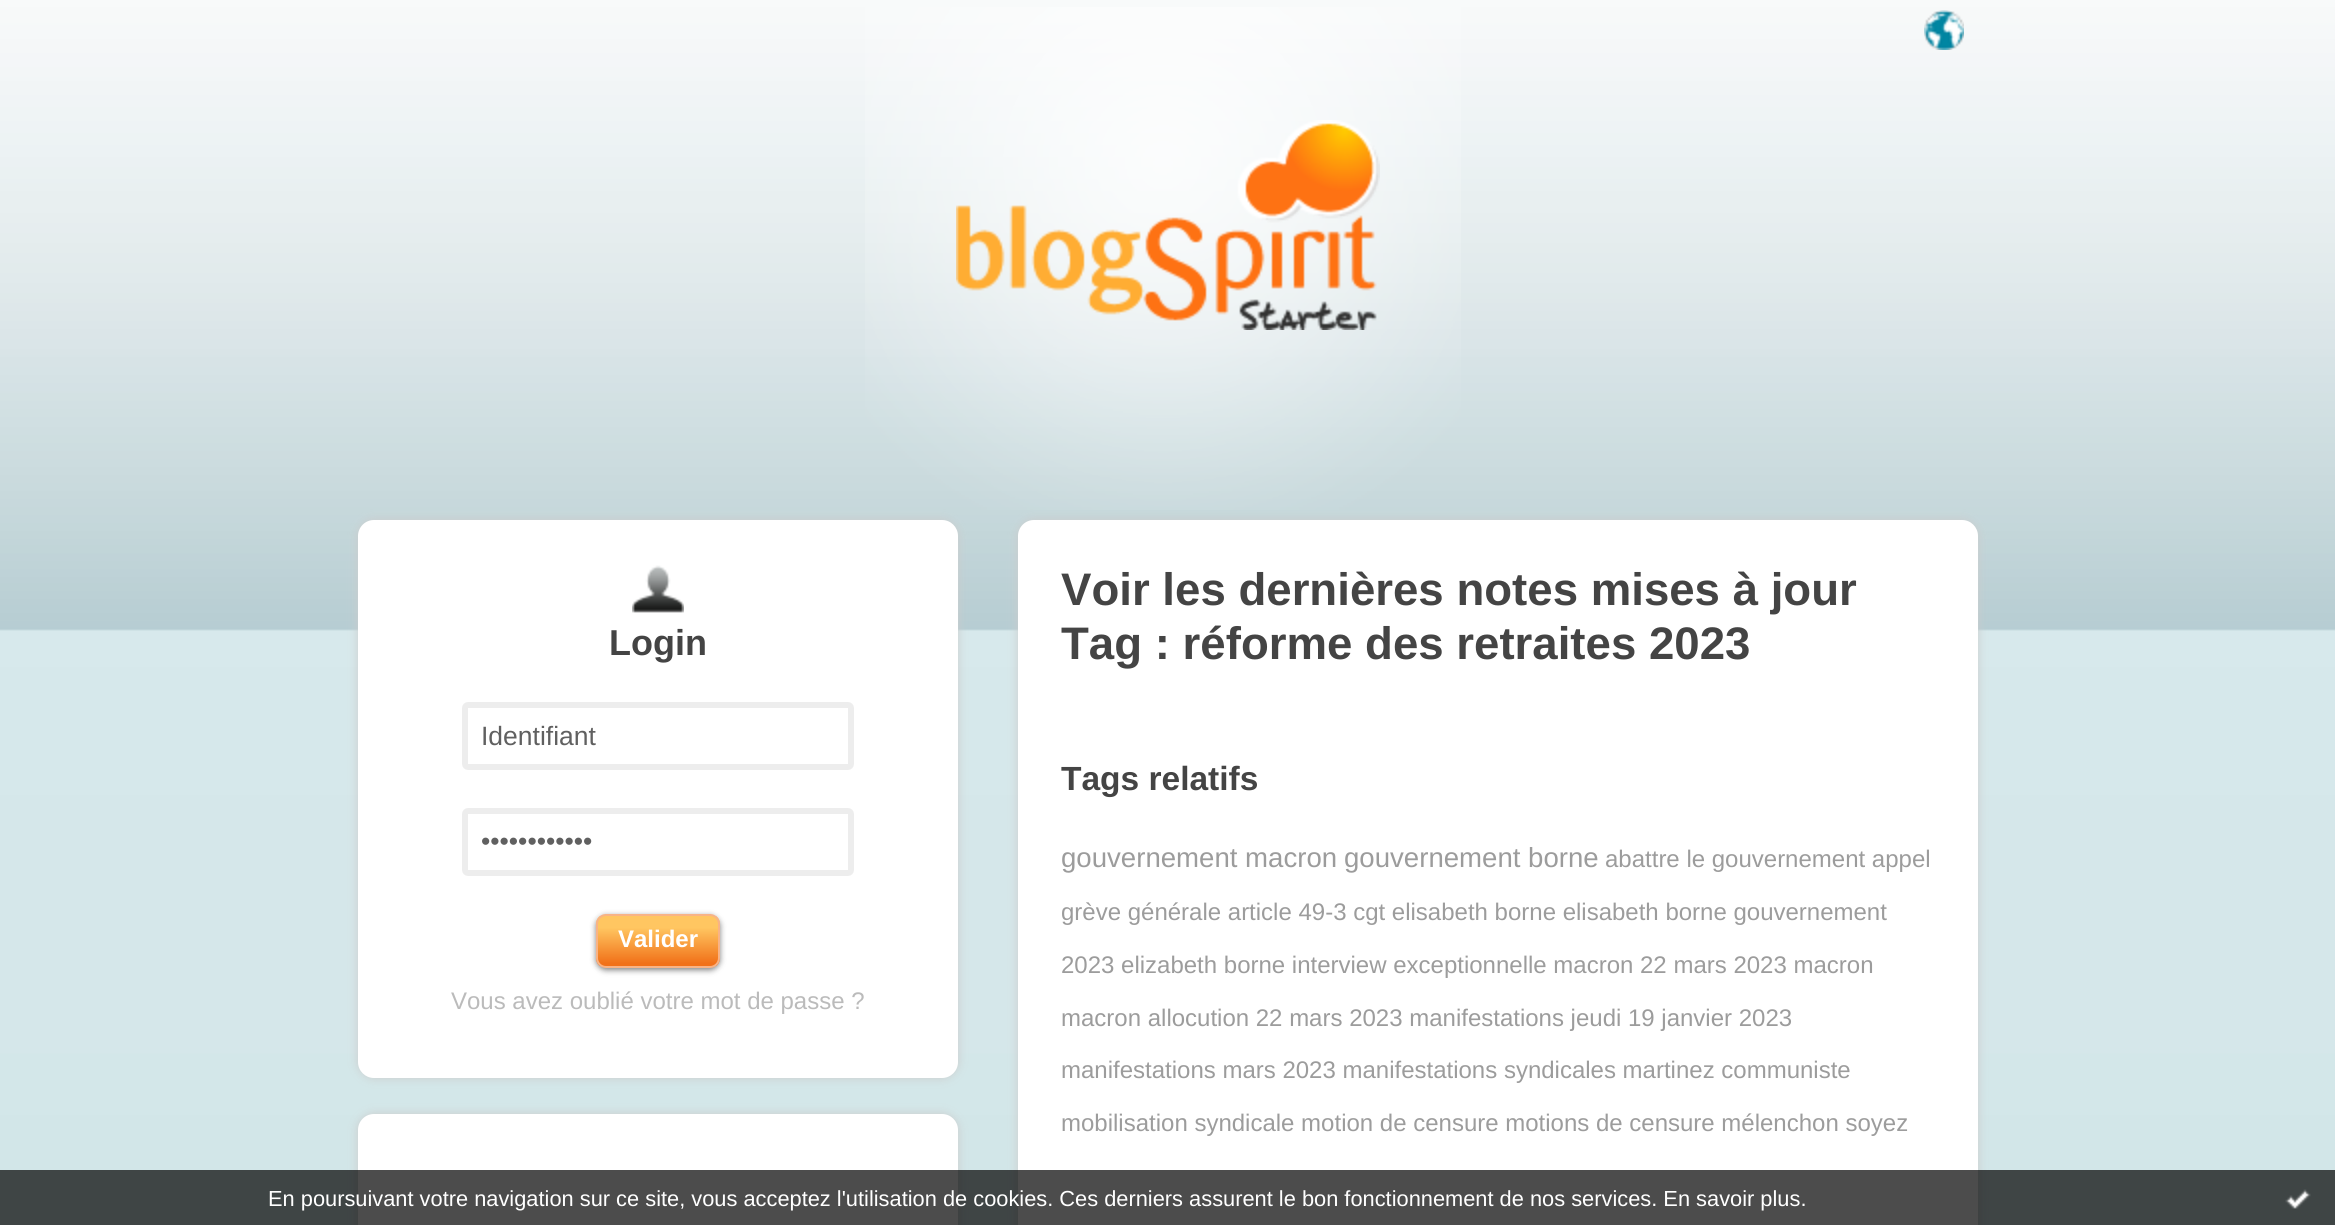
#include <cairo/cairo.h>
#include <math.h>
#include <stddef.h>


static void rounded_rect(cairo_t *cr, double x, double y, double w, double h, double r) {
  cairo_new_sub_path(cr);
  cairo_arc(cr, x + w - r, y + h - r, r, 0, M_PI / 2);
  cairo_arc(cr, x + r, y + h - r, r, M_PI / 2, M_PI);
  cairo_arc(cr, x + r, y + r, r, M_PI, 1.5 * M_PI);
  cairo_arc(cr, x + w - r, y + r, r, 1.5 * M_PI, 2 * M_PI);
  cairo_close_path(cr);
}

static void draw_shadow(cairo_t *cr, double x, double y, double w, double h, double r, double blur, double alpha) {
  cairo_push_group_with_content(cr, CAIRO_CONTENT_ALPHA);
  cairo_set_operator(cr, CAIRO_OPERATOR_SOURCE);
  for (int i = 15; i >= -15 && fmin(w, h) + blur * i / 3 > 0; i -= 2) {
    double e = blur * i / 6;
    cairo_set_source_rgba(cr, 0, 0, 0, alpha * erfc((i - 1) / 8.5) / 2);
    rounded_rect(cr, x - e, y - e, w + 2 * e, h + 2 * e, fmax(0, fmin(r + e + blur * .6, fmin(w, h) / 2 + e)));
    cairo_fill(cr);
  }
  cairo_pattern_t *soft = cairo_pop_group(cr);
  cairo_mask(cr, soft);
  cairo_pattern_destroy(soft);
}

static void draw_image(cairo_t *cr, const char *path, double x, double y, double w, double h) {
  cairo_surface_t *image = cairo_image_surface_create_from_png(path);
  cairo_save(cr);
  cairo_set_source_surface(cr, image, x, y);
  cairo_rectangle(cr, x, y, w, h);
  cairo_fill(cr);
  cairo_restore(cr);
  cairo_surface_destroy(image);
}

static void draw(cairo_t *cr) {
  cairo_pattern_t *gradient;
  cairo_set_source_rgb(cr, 1, 1, 1);
  cairo_paint(cr);
  draw_image(cr, "images/1.png", 0, 0, 2335, 1225);
  cairo_set_source_rgb(cr, 204 / 255.0, 204 / 255.0, 204 / 255.0);
  draw_shadow(cr, 358, 520, 600, 558, 16, 5, 1);
  draw_shadow(cr, 1018, 520, 960, 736, 16, 5, 1);
  draw_image(cr, "images/2.png", 865, 7, 596, 503);
  draw_image(cr, "images/3.png", 1924, 10, 40, 40);
  draw_image(cr, "images/4.png", 956, 120, 424, 210);
  cairo_set_source_rgb(cr, 1, 1, 1);
  rounded_rect(cr, 358, 520, 600, 558, 16);
  cairo_fill(cr);
  draw_image(cr, "images/5.png", 632, 565, 52, 48);
  rounded_rect(cr, 465, 705, 386, 62, 3);
  cairo_set_source_rgb(cr, 237 / 255.0, 237 / 255.0, 237 / 255.0);
  cairo_set_line_width(cr, 6);
  cairo_stroke(cr);
  rounded_rect(cr, 465, 811, 386, 62, 3);
  cairo_stroke(cr);
  cairo_set_source_rgb(cr, 0, 0, 0);
  draw_shadow(cr, 596, 916, 124, 54, 10, 3, 0.5);
  cairo_save(cr);
  rounded_rect(cr, 596, 914, 124, 54, 10);
  cairo_clip(cr);
  gradient = cairo_pattern_create_linear(598, 966, 598, 916);
  cairo_pattern_add_color_stop_rgba(gradient, 0.05, 241 / 255.0, 113 / 255.0, 25 / 255.0, 1);
  cairo_pattern_add_color_stop_rgba(gradient, 0.77, 1, 198 / 255.0, 97 / 255.0, 1);
  cairo_set_source(cr, gradient);
  cairo_pattern_destroy(gradient);
  cairo_rectangle(cr, 596, 916, 124, 50);
  cairo_fill(cr);
  cairo_restore(cr);
  rounded_rect(cr, 597, 915, 122, 52, 9);
  cairo_set_source_rgb(cr, 248 / 255.0, 179 / 255.0, 134 / 255.0);
  cairo_set_line_width(cr, 2);
  cairo_stroke(cr);
  cairo_set_source_rgb(cr, 204 / 255.0, 204 / 255.0, 204 / 255.0);
  draw_shadow(cr, 358, 1114, 600, 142, 16, 5, 1);
  cairo_set_source_rgb(cr, 1, 1, 1);
  rounded_rect(cr, 358, 1114, 600, 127, 16);
  cairo_fill(cr);
  rounded_rect(cr, 1018, 520, 960, 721, 16);
  cairo_fill(cr);
  cairo_set_source_rgba(cr, 0, 0, 0, 0.7);
  cairo_rectangle(cr, 0, 1170, 2335, 55);
  cairo_fill(cr);
  draw_image(cr, "images/6.png", 2285, 1189, 26, 20);
  cairo_select_font_face(cr, "Liberation Sans", CAIRO_FONT_SLANT_NORMAL, CAIRO_FONT_WEIGHT_BOLD);
  cairo_set_font_size(cr, 36);
  cairo_set_source_rgb(cr, 68 / 255.0, 68 / 255.0, 68 / 255.0);
  cairo_move_to(cr, 609, 655);
  cairo_show_text(cr, "Login");
  cairo_select_font_face(cr, "Liberation Sans", CAIRO_FONT_SLANT_NORMAL, CAIRO_FONT_WEIGHT_NORMAL);
  cairo_set_font_size(cr, 26.5);
  cairo_set_source_rgb(cr, 96 / 255.0, 96 / 255.0, 96 / 255.0);
  cairo_move_to(cr, 481, 745);
  cairo_show_text(cr, "Identifiant");
  cairo_move_to(cr, 481, 850);
  cairo_show_text(cr, "••••••••••••");
  cairo_select_font_face(cr, "Liberation Sans", CAIRO_FONT_SLANT_NORMAL, CAIRO_FONT_WEIGHT_BOLD);
  cairo_set_font_size(cr, 24);
  cairo_set_source_rgb(cr, 1, 1, 1);
  cairo_move_to(cr, 618, 947);
  cairo_show_text(cr, "Valider");
  cairo_select_font_face(cr, "Liberation Sans", CAIRO_FONT_SLANT_NORMAL, CAIRO_FONT_WEIGHT_NORMAL);
  cairo_set_source_rgb(cr, 187 / 255.0, 187 / 255.0, 187 / 255.0);
  cairo_move_to(cr, 451, 1009);
  cairo_show_text(cr, "Vous avez oublié votre mot de passe ?");
  cairo_select_font_face(cr, "Liberation Sans", CAIRO_FONT_SLANT_NORMAL, CAIRO_FONT_WEIGHT_BOLD);
  cairo_set_font_size(cr, 45.6);
  cairo_set_source_rgb(cr, 68 / 255.0, 68 / 255.0, 68 / 255.0);
  cairo_move_to(cr, 1061, 605);
  cairo_show_text(cr, "Voir les dernières notes mises à jour");
  cairo_move_to(cr, 1061, 659);
  cairo_show_text(cr, "Tag : réforme des retraites 2023");
  cairo_set_font_size(cr, 33.5);
  cairo_move_to(cr, 1061, 790);
  cairo_show_text(cr, "Tags relatifs");
  cairo_select_font_face(cr, "Liberation Sans", CAIRO_FONT_SLANT_NORMAL, CAIRO_FONT_WEIGHT_NORMAL);
  cairo_set_font_size(cr, 27.6);
  cairo_set_source_rgb(cr, 156 / 255.0, 156 / 255.0, 156 / 255.0);
  cairo_move_to(cr, 1061, 867);
  cairo_show_text(cr, "gouvernement macron");
  cairo_move_to(cr, 1344, 867);
  cairo_show_text(cr, "gouvernement borne");
  cairo_set_font_size(cr, 24);
  cairo_move_to(cr, 1605, 867);
  cairo_show_text(cr, "abattre le gouvernement appel");
  cairo_move_to(cr, 1061, 920);
  cairo_show_text(cr, "grève générale article 49-3 cgt elisabeth borne elisabeth borne gouvernement");
  cairo_move_to(cr, 1061, 973);
  cairo_show_text(cr, "2023 elizabeth borne interview exceptionnelle macron 22 mars 2023 macron");
  cairo_move_to(cr, 1061, 1026);
  cairo_show_text(cr, "macron allocution 22 mars 2023 manifestations jeudi 19 janvier 2023");
  cairo_move_to(cr, 1061, 1078);
  cairo_show_text(cr, "manifestations mars 2023 manifestations syndicales martinez communiste");
  cairo_move_to(cr, 1061, 1131);
  cairo_show_text(cr, "mobilisation syndicale motion de censure motions de censure mélenchon soyez");
  cairo_set_font_size(cr, 21.82);
  cairo_set_source_rgb(cr, 1, 1, 1);
  cairo_move_to(cr, 268, 1206);
  cairo_show_text(cr, "En poursuivant votre navigation sur ce site, vous acceptez l'utilisation de cookies. Ces derniers assurent le bon fonctionnement de nos services. En savoir plus.");
}

int main(void) {
  cairo_surface_t *surface = cairo_image_surface_create(CAIRO_FORMAT_RGB24, 2335, 1225);
  cairo_t *cr = cairo_create(surface);
  cairo_font_options_t *options = cairo_font_options_create();
  cairo_font_options_set_hint_metrics(options, CAIRO_HINT_METRICS_OFF);
  cairo_font_options_set_hint_style(options, CAIRO_HINT_STYLE_NONE);
  cairo_set_font_options(cr, options);
  cairo_set_miter_limit(cr, 4);
  draw(cr);
  cairo_surface_write_to_png(surface, "out.png");
  cairo_font_options_destroy(options);
  cairo_destroy(cr);
  cairo_surface_destroy(surface);
  return 0;
}
